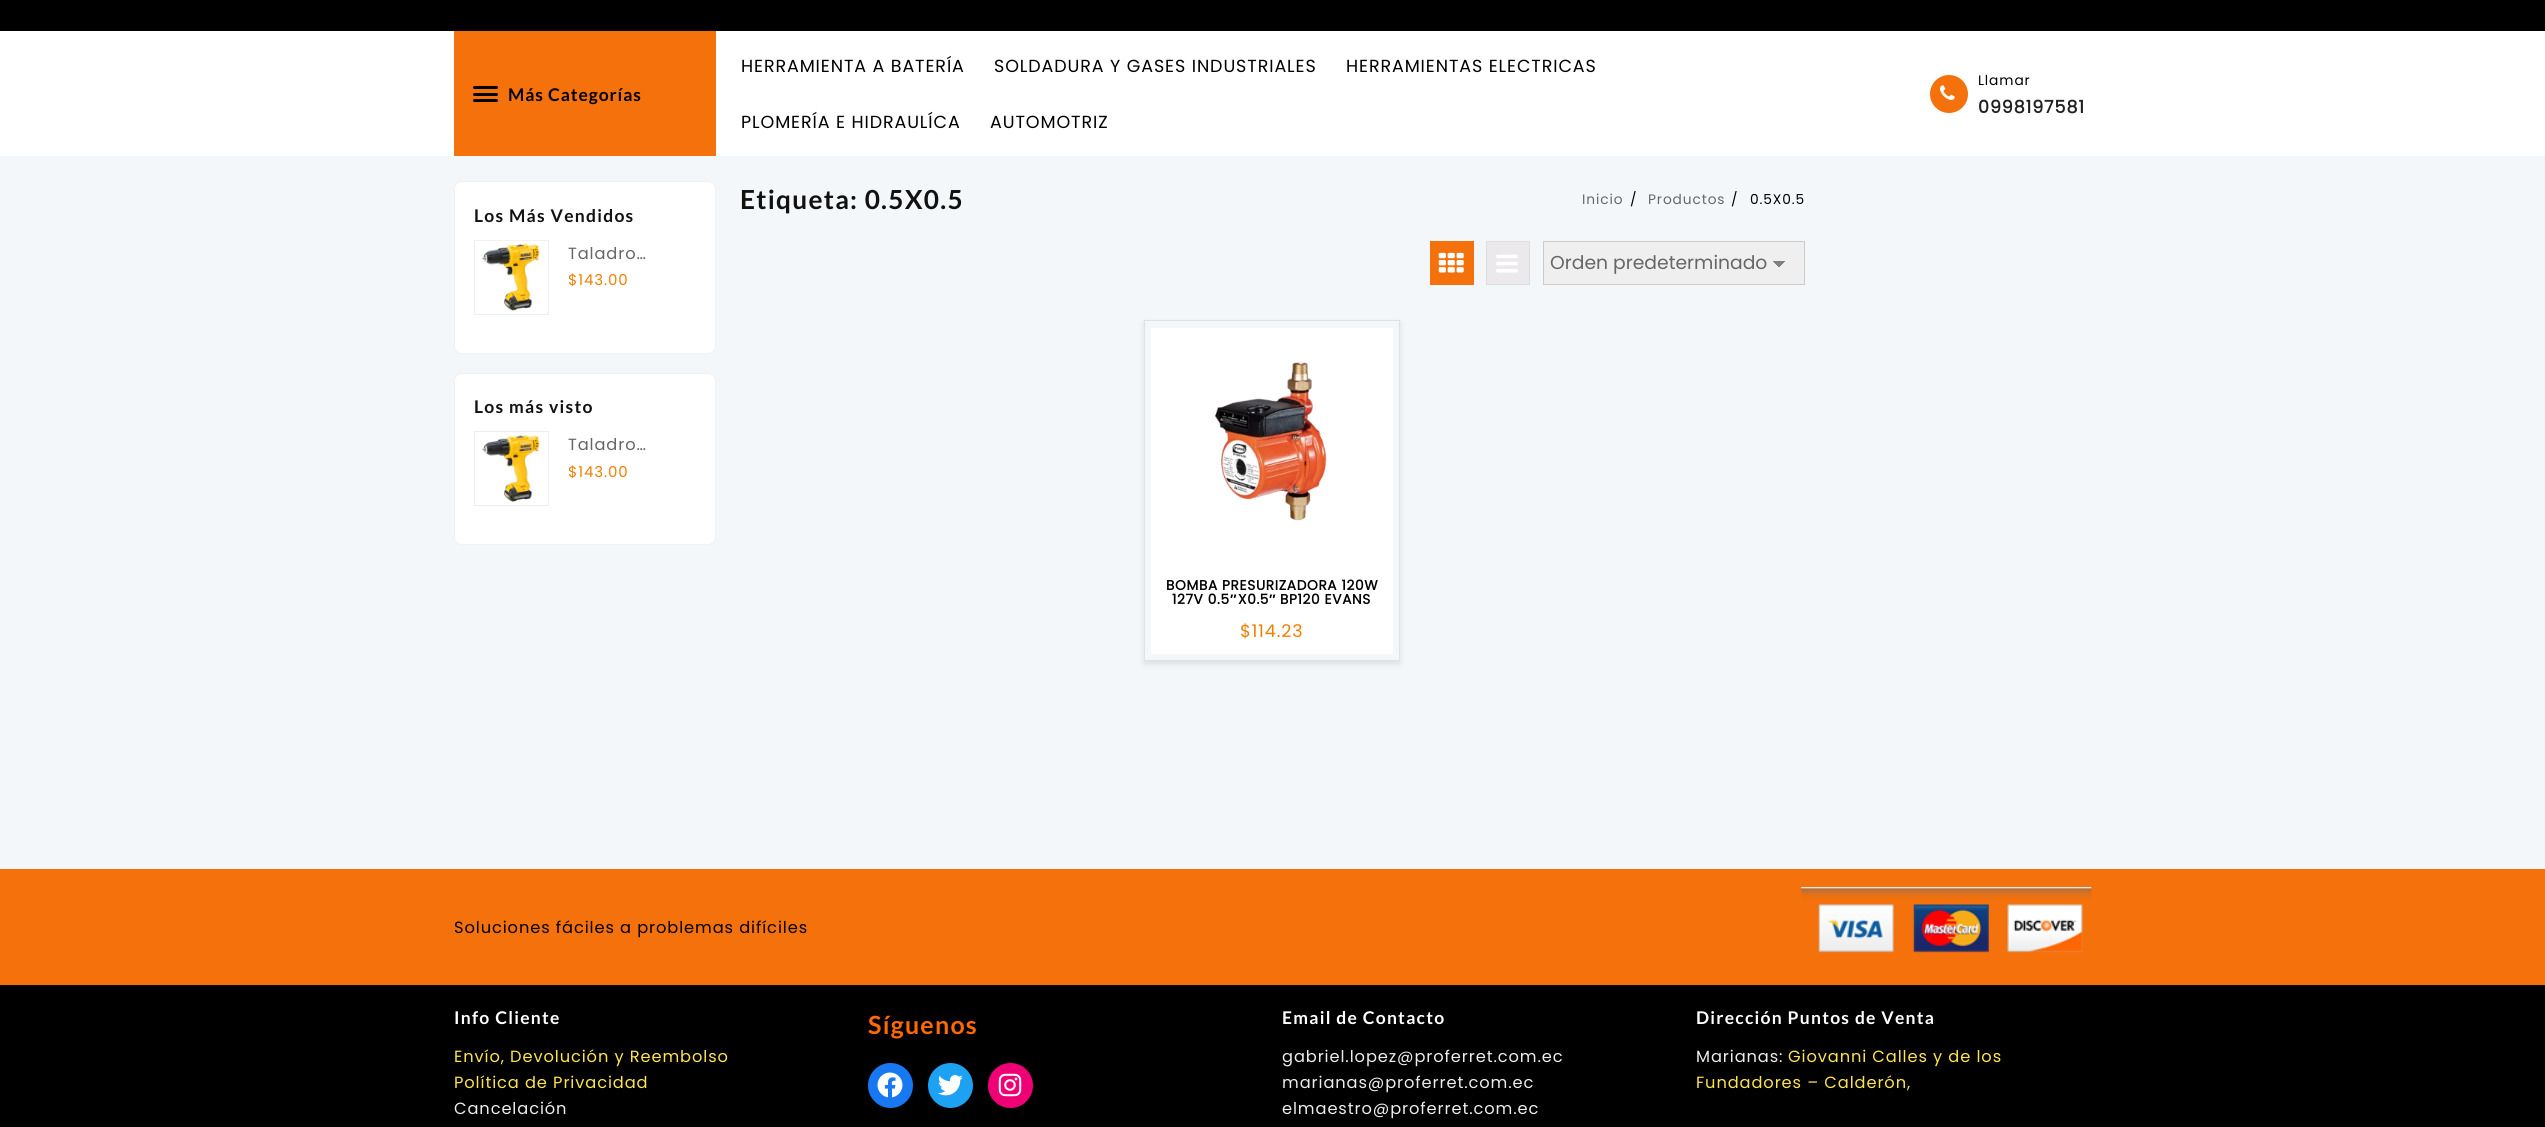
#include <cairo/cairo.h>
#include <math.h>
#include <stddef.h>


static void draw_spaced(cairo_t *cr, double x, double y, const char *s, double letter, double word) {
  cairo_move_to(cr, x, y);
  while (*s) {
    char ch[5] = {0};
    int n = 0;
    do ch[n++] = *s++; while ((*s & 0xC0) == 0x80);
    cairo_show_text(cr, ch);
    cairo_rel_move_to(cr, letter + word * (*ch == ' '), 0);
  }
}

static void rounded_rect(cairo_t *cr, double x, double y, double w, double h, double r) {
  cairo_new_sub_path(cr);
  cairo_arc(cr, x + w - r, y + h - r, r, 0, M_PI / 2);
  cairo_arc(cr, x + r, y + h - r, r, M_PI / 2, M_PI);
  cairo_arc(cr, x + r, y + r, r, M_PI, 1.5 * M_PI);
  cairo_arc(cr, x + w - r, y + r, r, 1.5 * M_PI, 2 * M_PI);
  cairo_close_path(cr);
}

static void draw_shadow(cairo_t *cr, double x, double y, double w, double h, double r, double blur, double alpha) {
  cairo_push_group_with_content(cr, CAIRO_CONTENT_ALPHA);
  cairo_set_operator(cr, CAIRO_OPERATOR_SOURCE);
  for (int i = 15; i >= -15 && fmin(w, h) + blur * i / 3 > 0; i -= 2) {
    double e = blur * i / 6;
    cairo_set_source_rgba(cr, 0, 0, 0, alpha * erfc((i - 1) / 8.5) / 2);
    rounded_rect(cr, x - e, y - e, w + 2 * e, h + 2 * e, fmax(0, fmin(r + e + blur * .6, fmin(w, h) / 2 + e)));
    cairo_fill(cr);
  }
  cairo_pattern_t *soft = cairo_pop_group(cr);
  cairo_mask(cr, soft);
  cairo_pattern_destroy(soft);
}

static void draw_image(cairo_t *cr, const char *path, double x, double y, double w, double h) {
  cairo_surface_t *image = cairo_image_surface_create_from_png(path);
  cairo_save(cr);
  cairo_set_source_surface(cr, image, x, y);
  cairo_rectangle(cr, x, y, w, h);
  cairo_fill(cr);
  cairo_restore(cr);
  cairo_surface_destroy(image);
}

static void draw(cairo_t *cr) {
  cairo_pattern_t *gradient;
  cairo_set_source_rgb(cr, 244 / 255.0, 247 / 255.0, 249 / 255.0);
  cairo_paint(cr);
  cairo_set_source_rgb(cr, 0, 0, 0);
  cairo_rectangle(cr, 0, 0, 2545, 31);
  cairo_fill(cr);
  cairo_set_source_rgb(cr, 1, 1, 1);
  cairo_rectangle(cr, 0, 31, 2545, 125);
  cairo_fill(cr);
  cairo_set_source_rgb(cr, 244 / 255.0, 113 / 255.0, 12 / 255.0);
  cairo_rectangle(cr, 454, 31, 262, 125);
  cairo_fill(cr);
  cairo_set_source_rgb(cr, 0, 0, 0);
  rounded_rect(cr, 473, 86, 25, 3, 1.5);
  cairo_fill(cr);
  rounded_rect(cr, 473, 93, 25, 3, 1.5);
  cairo_fill(cr);
  rounded_rect(cr, 473, 99, 25, 3, 1.5);
  cairo_fill(cr);
  cairo_set_source_rgb(cr, 244 / 255.0, 113 / 255.0, 12 / 255.0);
  cairo_arc(cr, 1949, 94, 19, 0, 2 * M_PI);
  cairo_fill(cr);
  draw_image(cr, "images/1.png", 1940, 85, 15, 15);
  cairo_set_source_rgb(cr, 1, 1, 1);
  rounded_rect(cr, 454.5, 181.5, 261, 172, 7.5);
  cairo_fill_preserve(cr);
  cairo_set_source_rgb(cr, 241 / 255.0, 241 / 255.0, 241 / 255.0);
  cairo_set_line_width(cr, 1);
  cairo_stroke(cr);
  cairo_rectangle(cr, 474.5, 240.5, 74, 74);
  cairo_set_source_rgb(cr, 238 / 255.0, 238 / 255.0, 238 / 255.0);
  cairo_stroke(cr);
  draw_image(cr, "images/2.png", 475, 240, 72, 71);
  cairo_set_source_rgb(cr, 1, 1, 1);
  rounded_rect(cr, 454.5, 373.5, 261, 171, 7.5);
  cairo_fill_preserve(cr);
  cairo_set_source_rgb(cr, 241 / 255.0, 241 / 255.0, 241 / 255.0);
  cairo_stroke(cr);
  cairo_rectangle(cr, 474.5, 431.5, 74, 74);
  cairo_set_source_rgb(cr, 238 / 255.0, 238 / 255.0, 238 / 255.0);
  cairo_stroke(cr);
  draw_image(cr, "images/3.png", 482, 433, 58, 69);
  cairo_set_source_rgb(cr, 244 / 255.0, 113 / 255.0, 12 / 255.0);
  cairo_rectangle(cr, 1430, 241, 44, 44);
  cairo_fill(cr);
  draw_image(cr, "images/4.png", 1438, 252, 26, 21);
  cairo_set_source_rgb(cr, 235 / 255.0, 233 / 255.0, 235 / 255.0);
  cairo_rectangle(cr, 1486.5, 241.5, 43, 43);
  cairo_fill_preserve(cr);
  cairo_set_source_rgb(cr, 221 / 255.0, 221 / 255.0, 221 / 255.0);
  cairo_stroke(cr);
  draw_image(cr, "images/5.png", 1496, 254, 22, 19);
  cairo_set_source_rgb(cr, 239 / 255.0, 239 / 255.0, 239 / 255.0);
  cairo_rectangle(cr, 1544, 242, 260, 42);
  cairo_fill(cr);
  gradient = cairo_pattern_create_linear(1779, 261, 1785, 268);
  cairo_pattern_add_color_stop_rgba(gradient, 0.5, 128 / 255.0, 128 / 255.0, 128 / 255.0, 1);
  cairo_pattern_add_color_stop_rgba(gradient, 0.5, 239 / 255.0, 239 / 255.0, 239 / 255.0, 1);
  cairo_set_source(cr, gradient);
  cairo_pattern_destroy(gradient);
  cairo_rectangle(cr, 1779, 261, 6, 7);
  cairo_fill(cr);
  gradient = cairo_pattern_create_linear(1773, 268, 1779, 261);
  cairo_pattern_add_color_stop_rgba(gradient, 0.5, 239 / 255.0, 239 / 255.0, 239 / 255.0, 1);
  cairo_pattern_add_color_stop_rgba(gradient, 0.5, 128 / 255.0, 128 / 255.0, 128 / 255.0, 1);
  cairo_set_source(cr, gradient);
  cairo_pattern_destroy(gradient);
  cairo_rectangle(cr, 1773, 261, 6, 7);
  cairo_fill(cr);
  cairo_rectangle(cr, 1543.5, 241.5, 261, 43);
  cairo_set_source_rgb(cr, 204 / 255.0, 204 / 255.0, 204 / 255.0);
  cairo_stroke(cr);
  cairo_save(cr);
  cairo_set_fill_rule(cr, CAIRO_FILL_RULE_EVEN_ODD);
  cairo_new_path(cr);
  cairo_move_to(cr, 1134, 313);
  cairo_line_to(cr, 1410, 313);
  cairo_line_to(cr, 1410, 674);
  cairo_line_to(cr, 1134, 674);
  cairo_close_path(cr);
  cairo_move_to(cr, 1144, 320);
  cairo_line_to(cr, 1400, 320);
  cairo_line_to(cr, 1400, 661);
  cairo_line_to(cr, 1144, 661);
  cairo_close_path(cr);
  cairo_clip(cr);
  cairo_set_source_rgb(cr, 0, 0, 0);
  draw_shadow(cr, 1144, 323, 256, 341, 0, 3, 0.1);
  cairo_restore(cr);
  cairo_rectangle(cr, 1144.5, 320.5, 255, 340);
  cairo_set_source_rgb(cr, 225 / 255.0, 225 / 255.0, 225 / 255.0);
  cairo_stroke(cr);
  cairo_set_source_rgb(cr, 1, 1, 1);
  cairo_rectangle(cr, 1151, 328, 242, 326);
  cairo_fill(cr);
  draw_image(cr, "images/6.png", 1214, 362, 113, 159);
  cairo_set_source_rgb(cr, 244 / 255.0, 113 / 255.0, 12 / 255.0);
  cairo_rectangle(cr, 0, 869, 2545, 116);
  cairo_fill(cr);
  draw_image(cr, "images/7.png", 1801, 887, 291, 66);
  cairo_set_source_rgb(cr, 0, 0, 0);
  cairo_rectangle(cr, 0, 985, 2545, 142);
  cairo_fill(cr);
  cairo_set_source_rgb(cr, 23 / 255.0, 120 / 255.0, 242 / 255.0);
  cairo_arc(cr, 890.5, 1085.5, 22.5, 0, 2 * M_PI);
  cairo_fill(cr);
  draw_image(cr, "images/8.png", 877, 1072, 26, 26);
  cairo_set_source_rgb(cr, 29 / 255.0, 161 / 255.0, 242 / 255.0);
  cairo_arc(cr, 950.5, 1085.5, 22.5, 0, 2 * M_PI);
  cairo_fill(cr);
  draw_image(cr, "images/9.png", 938, 1075, 25, 21);
  cairo_set_source_rgb(cr, 240 / 255.0, 0, 117 / 255.0);
  cairo_arc(cr, 1010.5, 1085.5, 22.5, 0, 2 * M_PI);
  cairo_fill(cr);
  draw_image(cr, "images/10.png", 998, 1073, 24, 24);
  cairo_select_font_face(cr, "Lato", CAIRO_FONT_SLANT_NORMAL, CAIRO_FONT_WEIGHT_BOLD);
  cairo_set_font_size(cr, 17.5);
  cairo_set_source_rgb(cr, 0, 0, 0);
  draw_spaced(cr, 508, 101, "Más Categorías", 0.9, 0);
  cairo_select_font_face(cr, "Poppins", CAIRO_FONT_SLANT_NORMAL, CAIRO_FONT_WEIGHT_NORMAL);
  draw_spaced(cr, 741, 72, "HERRAMIENTA A BATERÍA", 0.9, 0);
  draw_spaced(cr, 994, 72, "SOLDADURA Y GASES INDUSTRIALES", 0.9, 0);
  draw_spaced(cr, 1346, 72, "HERRAMIENTAS ELECTRICAS", 0.9, 0);
  draw_spaced(cr, 741, 128, "PLOMERÍA E HIDRAULÍCA", 0.9, 0);
  draw_spaced(cr, 990, 128, "AUTOMOTRIZ", 0.9, 0);
  cairo_set_font_size(cr, 13.75);
  draw_spaced(cr, 1978, 85, "Llamar", 0.9, 0);
  cairo_select_font_face(cr, "Poppins", CAIRO_FONT_SLANT_NORMAL, CAIRO_FONT_WEIGHT_BOLD);
  cairo_set_font_size(cr, 17.5);
  cairo_set_source_rgb(cr, 33 / 255.0, 33 / 255.0, 33 / 255.0);
  draw_spaced(cr, 1978, 113, "0998197581", 0.9, 0);
  cairo_select_font_face(cr, "Lato", CAIRO_FONT_SLANT_NORMAL, CAIRO_FONT_WEIGHT_BOLD);
  cairo_set_source_rgb(cr, 17 / 255.0, 17 / 255.0, 17 / 255.0);
  draw_spaced(cr, 474, 222, "Los Más Vendidos", 1.25, 0);
  cairo_select_font_face(cr, "Poppins", CAIRO_FONT_SLANT_NORMAL, CAIRO_FONT_WEIGHT_NORMAL);
  cairo_set_font_size(cr, 16.25);
  cairo_set_source_rgb(cr, 102 / 255.0, 102 / 255.0, 102 / 255.0);
  draw_spaced(cr, 568, 259, "Taladro…", 0.9, 0);
  cairo_set_font_size(cr, 15);
  cairo_set_source_rgb(cr, 239 / 255.0, 127 / 255.0, 0);
  draw_spaced(cr, 568, 285, "$143.00", 0.9, 0);
  cairo_select_font_face(cr, "Lato", CAIRO_FONT_SLANT_NORMAL, CAIRO_FONT_WEIGHT_BOLD);
  cairo_set_font_size(cr, 17.5);
  cairo_set_source_rgb(cr, 17 / 255.0, 17 / 255.0, 17 / 255.0);
  draw_spaced(cr, 474, 413, "Los más visto", 1.25, 0);
  cairo_select_font_face(cr, "Poppins", CAIRO_FONT_SLANT_NORMAL, CAIRO_FONT_WEIGHT_NORMAL);
  cairo_set_font_size(cr, 16.25);
  cairo_set_source_rgb(cr, 102 / 255.0, 102 / 255.0, 102 / 255.0);
  draw_spaced(cr, 568, 450, "Taladro…", 0.9, 0);
  cairo_set_font_size(cr, 15);
  cairo_set_source_rgb(cr, 239 / 255.0, 127 / 255.0, 0);
  draw_spaced(cr, 568, 477, "$143.00", 0.9, 0);
  cairo_select_font_face(cr, "Lato", CAIRO_FONT_SLANT_NORMAL, CAIRO_FONT_WEIGHT_BOLD);
  cairo_set_font_size(cr, 26.25);
  cairo_set_source_rgb(cr, 17 / 255.0, 17 / 255.0, 17 / 255.0);
  draw_spaced(cr, 740, 209, "Etiqueta: 0.5X0.5", 1.25, 0);
  cairo_select_font_face(cr, "Poppins", CAIRO_FONT_SLANT_NORMAL, CAIRO_FONT_WEIGHT_NORMAL);
  cairo_set_font_size(cr, 13.75);
  cairo_set_source_rgb(cr, 102 / 255.0, 102 / 255.0, 102 / 255.0);
  draw_spaced(cr, 1582, 204, "Inicio", 0.9, 0);
  cairo_set_source_rgb(cr, 0, 0, 0);
  draw_spaced(cr, 1630, 204, "/", 0.9, 0);
  cairo_set_source_rgb(cr, 102 / 255.0, 102 / 255.0, 102 / 255.0);
  draw_spaced(cr, 1648, 204, "Productos", 0.9, 0);
  cairo_set_source_rgb(cr, 0, 0, 0);
  draw_spaced(cr, 1731, 204, "/", 0.9, 0);
  draw_spaced(cr, 1750, 204, "0.5X0.5", 0.9, 0);
  cairo_set_font_size(cr, 18.75);
  cairo_set_source_rgb(cr, 102 / 255.0, 102 / 255.0, 102 / 255.0);
  cairo_move_to(cr, 1550, 269);
  cairo_show_text(cr, "Orden predeterminado");
  cairo_select_font_face(cr, "Poppins", CAIRO_FONT_SLANT_NORMAL, CAIRO_FONT_WEIGHT_BOLD);
  cairo_set_font_size(cr, 13.75);
  cairo_set_source_rgb(cr, 0, 0, 0);
  draw_spaced(cr, 1166, 590, "BOMBA PRESURIZADORA 120W", 0.6, 0);
  draw_spaced(cr, 1172, 604, "127V 0.5", 0.6, 0);
  cairo_select_font_face(cr, "Liberation Sans", CAIRO_FONT_SLANT_NORMAL, CAIRO_FONT_WEIGHT_BOLD);
  draw_spaced(cr, 1230, 604, "″", 0.6, 0);
  cairo_select_font_face(cr, "Poppins", CAIRO_FONT_SLANT_NORMAL, CAIRO_FONT_WEIGHT_BOLD);
  draw_spaced(cr, 1238, 604, "X0.5", 0.6, 0);
  cairo_select_font_face(cr, "Liberation Sans", CAIRO_FONT_SLANT_NORMAL, CAIRO_FONT_WEIGHT_BOLD);
  draw_spaced(cr, 1269, 604, "″", 0.6, 0);
  cairo_select_font_face(cr, "Poppins", CAIRO_FONT_SLANT_NORMAL, CAIRO_FONT_WEIGHT_BOLD);
  draw_spaced(cr, 1280, 604, "BP120 EVANS", 0.6, 0);
  cairo_select_font_face(cr, "Poppins", CAIRO_FONT_SLANT_NORMAL, CAIRO_FONT_WEIGHT_NORMAL);
  cairo_set_font_size(cr, 17.5);
  cairo_set_source_rgb(cr, 239 / 255.0, 127 / 255.0, 0);
  draw_spaced(cr, 1240, 637, "$114.23", 0.9, 0);
  cairo_set_font_size(cr, 16.25);
  cairo_set_source_rgb(cr, 0, 0, 0);
  draw_spaced(cr, 454, 933, "Soluciones fáciles a problemas difíciles", 0.9, 0);
  cairo_select_font_face(cr, "Lato", CAIRO_FONT_SLANT_NORMAL, CAIRO_FONT_WEIGHT_BOLD);
  cairo_set_font_size(cr, 17.5);
  cairo_set_source_rgb(cr, 1, 1, 1);
  draw_spaced(cr, 454, 1024, "Info Cliente", 1.25, 0);
  cairo_select_font_face(cr, "Poppins", CAIRO_FONT_SLANT_NORMAL, CAIRO_FONT_WEIGHT_NORMAL);
  cairo_set_font_size(cr, 16.25);
  cairo_set_source_rgb(cr, 254 / 255.0, 229 / 255.0, 77 / 255.0);
  draw_spaced(cr, 454, 1062, "Envío, Devolución y Reembolso", 0.9, 0);
  draw_spaced(cr, 454, 1088, "Política de Privacidad", 0.9, 0);
  cairo_set_source_rgb(cr, 237 / 255.0, 237 / 255.0, 237 / 255.0);
  draw_spaced(cr, 454, 1114, "Cancelación", 0.9, 0);
  cairo_select_font_face(cr, "Lato", CAIRO_FONT_SLANT_NORMAL, CAIRO_FONT_WEIGHT_BOLD);
  cairo_set_font_size(cr, 25);
  cairo_set_source_rgb(cr, 1, 105 / 255.0, 0);
  draw_spaced(cr, 868, 1034, "Síguenos", 1.25, 0);
  cairo_set_font_size(cr, 17.5);
  cairo_set_source_rgb(cr, 1, 1, 1);
  draw_spaced(cr, 1282, 1024, "Email de Contacto", 1.25, 0);
  cairo_select_font_face(cr, "Poppins", CAIRO_FONT_SLANT_NORMAL, CAIRO_FONT_WEIGHT_NORMAL);
  cairo_set_font_size(cr, 16.25);
  cairo_set_source_rgb(cr, 237 / 255.0, 237 / 255.0, 237 / 255.0);
  draw_spaced(cr, 1282, 1062, "gabriel.lopez@proferret.com.ec", 0.9, 0);
  draw_spaced(cr, 1282, 1088, "marianas@proferret.com.ec", 0.9, 0);
  draw_spaced(cr, 1282, 1114, "elmaestro@proferret.com.ec", 0.9, 0);
  cairo_select_font_face(cr, "Lato", CAIRO_FONT_SLANT_NORMAL, CAIRO_FONT_WEIGHT_BOLD);
  cairo_set_font_size(cr, 17.5);
  cairo_set_source_rgb(cr, 1, 1, 1);
  draw_spaced(cr, 1696, 1024, "Dirección Puntos de Venta", 1.25, 0);
  cairo_select_font_face(cr, "Poppins", CAIRO_FONT_SLANT_NORMAL, CAIRO_FONT_WEIGHT_NORMAL);
  cairo_set_font_size(cr, 16.25);
  cairo_set_source_rgb(cr, 237 / 255.0, 237 / 255.0, 237 / 255.0);
  draw_spaced(cr, 1696, 1062, "Marianas:", 0.9, 0);
  cairo_set_source_rgb(cr, 254 / 255.0, 229 / 255.0, 77 / 255.0);
  draw_spaced(cr, 1788, 1062, "Giovanni Calles y de los", 0.9, 0);
  draw_spaced(cr, 1696, 1088, "Fundadores – Calderón,", 0.9, 0);
}

int main(void) {
  cairo_surface_t *surface = cairo_image_surface_create(CAIRO_FORMAT_RGB24, 2545, 1127);
  cairo_t *cr = cairo_create(surface);
  cairo_font_options_t *options = cairo_font_options_create();
  cairo_font_options_set_hint_metrics(options, CAIRO_HINT_METRICS_OFF);
  cairo_font_options_set_hint_style(options, CAIRO_HINT_STYLE_NONE);
  cairo_set_font_options(cr, options);
  cairo_set_miter_limit(cr, 4);
  draw(cr);
  cairo_surface_write_to_png(surface, "out.png");
  cairo_font_options_destroy(options);
  cairo_destroy(cr);
  cairo_surface_destroy(surface);
  return 0;
}
